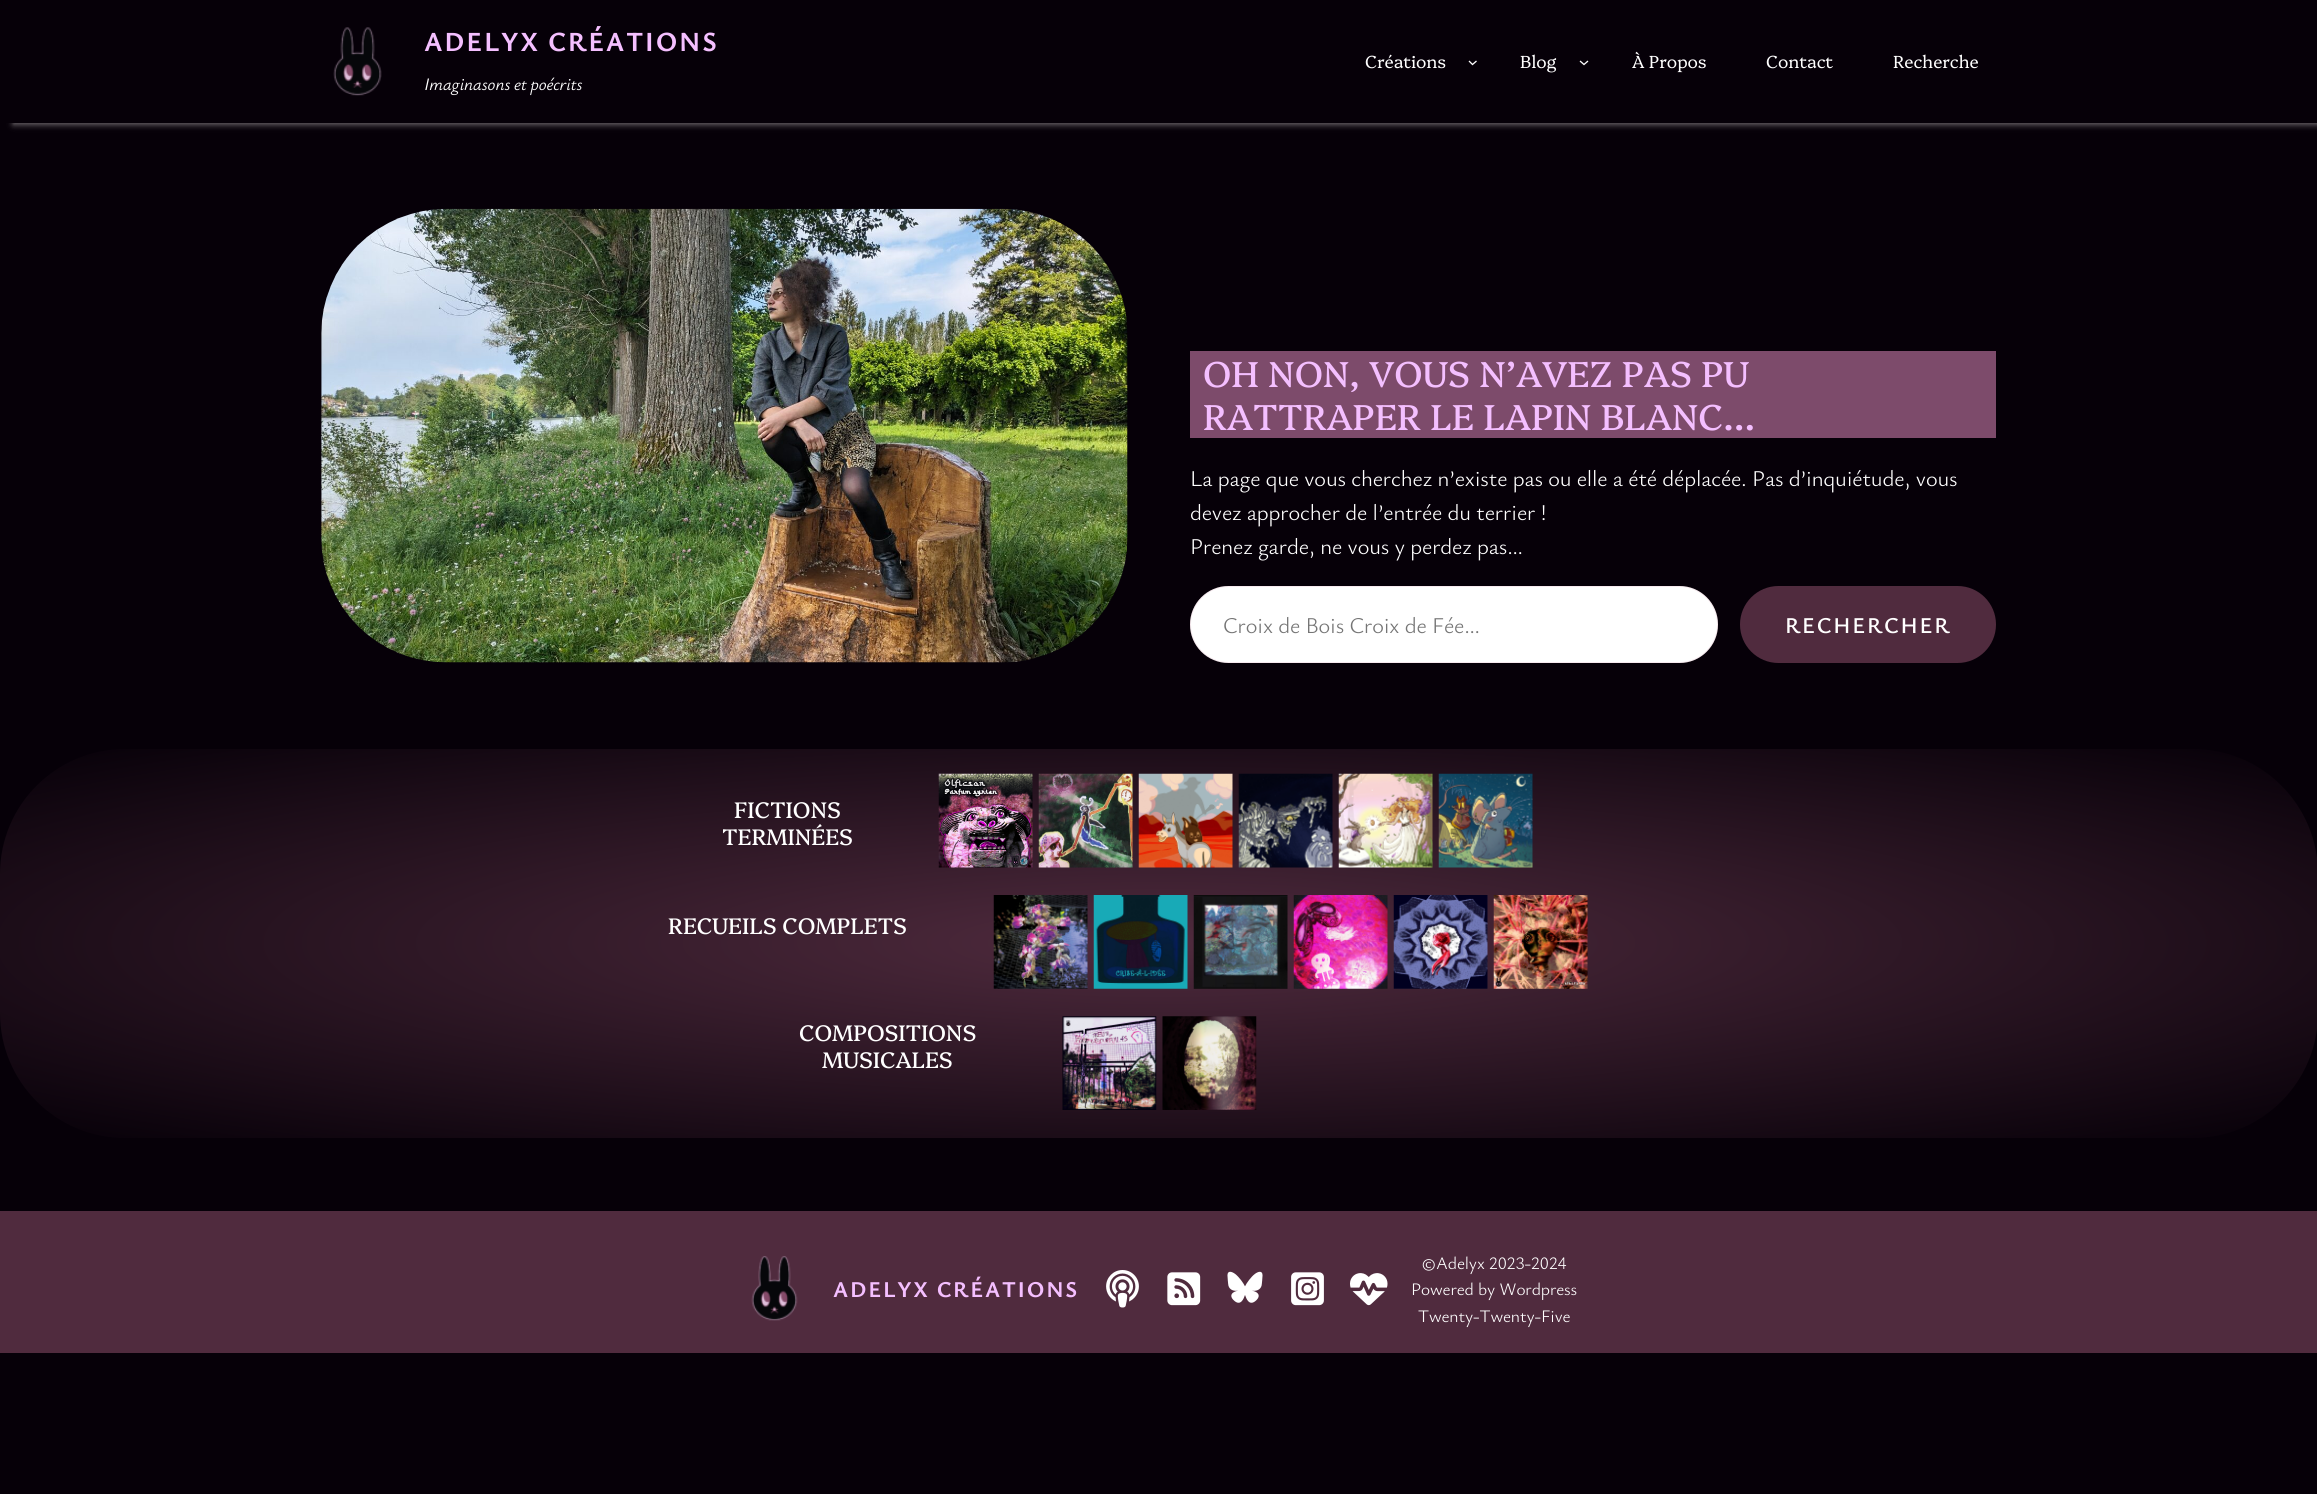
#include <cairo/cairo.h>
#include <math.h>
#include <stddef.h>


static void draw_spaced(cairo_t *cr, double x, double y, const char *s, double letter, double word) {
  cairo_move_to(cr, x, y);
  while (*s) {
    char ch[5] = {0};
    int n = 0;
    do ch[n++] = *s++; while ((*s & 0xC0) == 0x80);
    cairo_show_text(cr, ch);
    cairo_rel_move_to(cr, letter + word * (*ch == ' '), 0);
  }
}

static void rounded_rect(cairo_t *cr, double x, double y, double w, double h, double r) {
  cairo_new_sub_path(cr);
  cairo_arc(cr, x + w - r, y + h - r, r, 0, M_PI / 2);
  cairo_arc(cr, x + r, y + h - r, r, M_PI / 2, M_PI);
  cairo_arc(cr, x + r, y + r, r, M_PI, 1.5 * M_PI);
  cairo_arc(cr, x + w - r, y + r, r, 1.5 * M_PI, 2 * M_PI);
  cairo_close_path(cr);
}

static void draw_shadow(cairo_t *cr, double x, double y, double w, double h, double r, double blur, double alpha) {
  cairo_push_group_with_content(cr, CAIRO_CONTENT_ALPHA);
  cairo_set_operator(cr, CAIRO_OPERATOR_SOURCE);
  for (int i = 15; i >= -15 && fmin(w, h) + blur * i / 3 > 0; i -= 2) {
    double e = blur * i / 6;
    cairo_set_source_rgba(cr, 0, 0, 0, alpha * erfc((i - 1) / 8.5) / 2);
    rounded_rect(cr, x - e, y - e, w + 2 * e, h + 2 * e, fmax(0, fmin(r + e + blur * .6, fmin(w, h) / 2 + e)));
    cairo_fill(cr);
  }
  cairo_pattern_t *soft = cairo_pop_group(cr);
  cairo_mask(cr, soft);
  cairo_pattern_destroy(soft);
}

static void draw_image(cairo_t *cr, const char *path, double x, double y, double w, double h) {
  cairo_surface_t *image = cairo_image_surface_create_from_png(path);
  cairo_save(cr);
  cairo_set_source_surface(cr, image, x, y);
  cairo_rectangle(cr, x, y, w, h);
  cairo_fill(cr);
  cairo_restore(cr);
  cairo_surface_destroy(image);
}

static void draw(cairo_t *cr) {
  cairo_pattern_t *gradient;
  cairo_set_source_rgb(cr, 6 / 255.0, 0, 8 / 255.0);
  cairo_paint(cr);
  cairo_save(cr);
  cairo_set_fill_rule(cr, CAIRO_FILL_RULE_EVEN_ODD);
  cairo_new_path(cr);
  cairo_move_to(cr, 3, 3);
  cairo_line_to(cr, 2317, 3);
  cairo_line_to(cr, 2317, 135);
  cairo_line_to(cr, 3, 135);
  cairo_close_path(cr);
  cairo_move_to(cr, 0, 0);
  cairo_line_to(cr, 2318, 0);
  cairo_line_to(cr, 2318, 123);
  cairo_line_to(cr, 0, 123);
  cairo_close_path(cr);
  cairo_clip(cr);
  cairo_set_source_rgb(cr, 1, 249 / 255.0, 249 / 255.0);
  draw_shadow(cr, 13, 13, 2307, 112, 0, 3, 0.4);
  cairo_restore(cr);
  draw_image(cr, "images/1.png", 333, 27, 49, 69);
  cairo_new_path(cr);
  cairo_move_to(cr, 1469, 61);
  cairo_line_to(cr, 1472.5, 64.5);
  cairo_line_to(cr, 1476.5, 61);
  cairo_set_source_rgb(cr, 1, 1, 1);
  cairo_set_line_width(cr, 1.3);
  cairo_stroke(cr);
  cairo_new_path(cr);
  cairo_move_to(cr, 1580, 61);
  cairo_line_to(cr, 1584, 64.5);
  cairo_line_to(cr, 1588, 61);
  cairo_stroke(cr);
  draw_image(cr, "images/2.png", 321, 208, 807, 455);
  cairo_set_source_rgb(cr, 125 / 255.0, 75 / 255.0, 107 / 255.0);
  cairo_rectangle(cr, 1190, 351, 806, 87);
  cairo_fill(cr);
  cairo_set_source_rgb(cr, 1, 1, 1);
  rounded_rect(cr, 1190, 586, 528, 77, 38.5);
  cairo_fill(cr);
  rounded_rect(cr, 1190.5, 586.5, 527, 76, 38);
  cairo_set_source_rgba(cr, 219 / 255.0, 154 / 255.0, 177 / 255.0, 0.2);
  cairo_set_line_width(cr, 1);
  cairo_stroke(cr);
  cairo_set_source_rgb(cr, 80 / 255.0, 43 / 255.0, 62 / 255.0);
  rounded_rect(cr, 1740, 586, 256, 77, 38.5);
  cairo_fill(cr);
  gradient = cairo_pattern_create_radial(0, 0, 0, 0, 0, 1);
  cairo_pattern_set_matrix(gradient, &(cairo_matrix_t){1.0 / 1639, 0, 0, 1.0 / 275, -1.0 * 1159 / 1639, -1.0 * 943 / 275});
  cairo_pattern_add_color_stop_rgba(gradient, 0, 80 / 255.0, 43 / 255.0, 62 / 255.0, 1);
  cairo_pattern_add_color_stop_rgba(gradient, 1, 6 / 255.0, 0, 8 / 255.0, 1);
  cairo_set_source(cr, gradient);
  cairo_pattern_destroy(gradient);
  rounded_rect(cr, 0, 749, 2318, 389, 125);
  cairo_fill(cr);
  draw_image(cr, "images/3.png", 938, 773, 95, 95);
  draw_image(cr, "images/4.png", 1038, 773, 95, 95);
  draw_image(cr, "images/5.png", 1138, 773, 95, 95);
  draw_image(cr, "images/6.png", 1238, 773, 95, 95);
  draw_image(cr, "images/7.png", 1338, 773, 95, 95);
  draw_image(cr, "images/8.png", 1438, 773, 95, 95);
  draw_image(cr, "images/9.png", 993, 895, 95, 94);
  draw_image(cr, "images/10.png", 1093, 895, 95, 94);
  draw_image(cr, "images/11.png", 1193, 895, 95, 94);
  draw_image(cr, "images/12.png", 1293, 895, 95, 94);
  draw_image(cr, "images/13.png", 1393, 895, 95, 94);
  draw_image(cr, "images/14.png", 1493, 895, 95, 94);
  draw_image(cr, "images/15.png", 1062, 1016, 95, 94);
  draw_image(cr, "images/16.png", 1162, 1016, 95, 94);
  cairo_set_source_rgb(cr, 80 / 255.0, 43 / 255.0, 62 / 255.0);
  cairo_rectangle(cr, 0, 1211, 2317, 142);
  cairo_fill(cr);
  draw_image(cr, "images/17.png", 751, 1256, 47, 65);
  draw_image(cr, "images/18.png", 1106, 1270, 33, 38);
  draw_image(cr, "images/19.png", 1167, 1272, 34, 34);
  draw_image(cr, "images/20.png", 1227, 1271, 36, 32);
  draw_image(cr, "images/21.png", 1291, 1272, 33, 34);
  draw_image(cr, "images/22.png", 1350, 1273, 38, 33);
  cairo_select_font_face(cr, "Ysabeau Office", CAIRO_FONT_SLANT_NORMAL, CAIRO_FONT_WEIGHT_BOLD);
  cairo_set_font_size(cr, 27.5);
  cairo_set_source_rgb(cr, 244 / 255.0, 191 / 255.0, 1);
  draw_spaced(cr, 424, 51, "ADELYX CRÉATIONS", 1.75, 0);
  cairo_select_font_face(cr, "Ysabeau Office", CAIRO_FONT_SLANT_ITALIC, CAIRO_FONT_WEIGHT_NORMAL);
  cairo_set_font_size(cr, 17.5);
  cairo_set_source_rgb(cr, 1, 1, 1);
  draw_spaced(cr, 424, 90, "Imaginasons et poécrits", -0.12, 0);
  cairo_select_font_face(cr, "Platypi Light", CAIRO_FONT_SLANT_NORMAL, CAIRO_FONT_WEIGHT_NORMAL);
  draw_spaced(cr, 1365, 68, "Créations", -0.12, 0);
  draw_spaced(cr, 1520, 68, "Blog", -0.12, 0);
  draw_spaced(cr, 1632, 68, "À Propos", -0.12, 0);
  draw_spaced(cr, 1766, 68, "Contact", -0.12, 0);
  draw_spaced(cr, 1893, 68, "Recherche", -0.12, 0);
  cairo_select_font_face(cr, "Platypi", CAIRO_FONT_SLANT_NORMAL, CAIRO_FONT_WEIGHT_NORMAL);
  cairo_set_font_size(cr, 36);
  cairo_set_source_rgb(cr, 244 / 255.0, 191 / 255.0, 1);
  draw_spaced(cr, 1203, 387, "OH NON, VOUS N’AVEZ PAS PU", -0.12, 0);
  draw_spaced(cr, 1203, 430, "RATTRAPER LE LAPIN BLANC…", -0.12, 0);
  cairo_select_font_face(cr, "Ysabeau Office Light", CAIRO_FONT_SLANT_NORMAL, CAIRO_FONT_WEIGHT_NORMAL);
  cairo_set_font_size(cr, 22.5);
  cairo_set_source_rgb(cr, 1, 1, 1);
  draw_spaced(cr, 1190, 486, "La page que vous cherchez n’existe pas ou elle a été déplacée. Pas d’inquiétude, vous", -0.12, 0);
  draw_spaced(cr, 1190, 520, "devez approcher de l’entrée du terrier !", -0.12, 0);
  draw_spaced(cr, 1190, 554, "Prenez garde, ne vous y perdez pas…", -0.12, 0);
  cairo_set_source_rgb(cr, 117 / 255.0, 117 / 255.0, 117 / 255.0);
  draw_spaced(cr, 1223, 633, "Croix de Bois Croix de Fée…", -0.12, 0);
  cairo_select_font_face(cr, "Ysabeau Office SemiBold", CAIRO_FONT_SLANT_NORMAL, CAIRO_FONT_WEIGHT_NORMAL);
  cairo_set_source_rgb(cr, 1, 1, 1);
  draw_spaced(cr, 1785, 633, "RECHERCHER", 1.75, 0);
  cairo_select_font_face(cr, "Platypi", CAIRO_FONT_SLANT_NORMAL, CAIRO_FONT_WEIGHT_NORMAL);
  draw_spaced(cr, 734, 818, "FICTIONS", -0.12, 0);
  draw_spaced(cr, 722, 845, "TERMINÉES", -0.12, 0);
  draw_spaced(cr, 668, 934, "RECUEILS COMPLETS", -0.12, 0);
  draw_spaced(cr, 799, 1041, "COMPOSITIONS", -0.12, 0);
  draw_spaced(cr, 822, 1068, "MUSICALES", -0.12, 0);
  cairo_select_font_face(cr, "Ysabeau Office", CAIRO_FONT_SLANT_NORMAL, CAIRO_FONT_WEIGHT_BOLD);
  cairo_set_source_rgb(cr, 244 / 255.0, 191 / 255.0, 1);
  draw_spaced(cr, 833, 1297, "ADELYX CRÉATIONS", 1.75, 0);
  cairo_select_font_face(cr, "Ysabeau Office", CAIRO_FONT_SLANT_NORMAL, CAIRO_FONT_WEIGHT_NORMAL);
  cairo_set_font_size(cr, 17.5);
  cairo_set_source_rgb(cr, 1, 1, 1);
  draw_spaced(cr, 1422, 1269, "©", -0.12, 0);
  cairo_select_font_face(cr, "Ysabeau Office Light", CAIRO_FONT_SLANT_NORMAL, CAIRO_FONT_WEIGHT_NORMAL);
  draw_spaced(cr, 1436, 1269, "Adelyx 2023-2024", -0.12, 0);
  draw_spaced(cr, 1411, 1295, "Powered by Wordpress", -0.12, 0);
  draw_spaced(cr, 1418, 1322, "Twenty-Twenty-Five", -0.12, 0);
}

int main(void) {
  cairo_surface_t *surface = cairo_image_surface_create(CAIRO_FORMAT_RGB24, 2317, 1494);
  cairo_t *cr = cairo_create(surface);
  cairo_font_options_t *options = cairo_font_options_create();
  cairo_font_options_set_hint_metrics(options, CAIRO_HINT_METRICS_OFF);
  cairo_font_options_set_hint_style(options, CAIRO_HINT_STYLE_NONE);
  cairo_set_font_options(cr, options);
  cairo_set_miter_limit(cr, 4);
  draw(cr);
  cairo_surface_write_to_png(surface, "out.png");
  cairo_font_options_destroy(options);
  cairo_destroy(cr);
  cairo_surface_destroy(surface);
  return 0;
}
